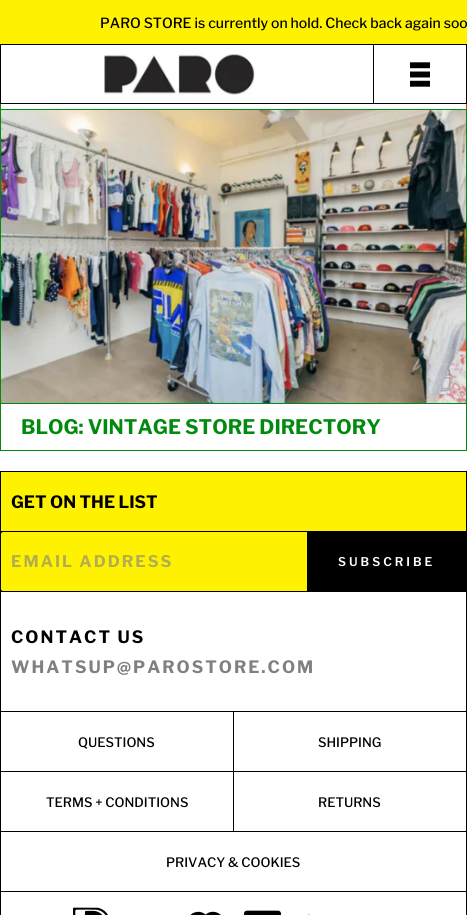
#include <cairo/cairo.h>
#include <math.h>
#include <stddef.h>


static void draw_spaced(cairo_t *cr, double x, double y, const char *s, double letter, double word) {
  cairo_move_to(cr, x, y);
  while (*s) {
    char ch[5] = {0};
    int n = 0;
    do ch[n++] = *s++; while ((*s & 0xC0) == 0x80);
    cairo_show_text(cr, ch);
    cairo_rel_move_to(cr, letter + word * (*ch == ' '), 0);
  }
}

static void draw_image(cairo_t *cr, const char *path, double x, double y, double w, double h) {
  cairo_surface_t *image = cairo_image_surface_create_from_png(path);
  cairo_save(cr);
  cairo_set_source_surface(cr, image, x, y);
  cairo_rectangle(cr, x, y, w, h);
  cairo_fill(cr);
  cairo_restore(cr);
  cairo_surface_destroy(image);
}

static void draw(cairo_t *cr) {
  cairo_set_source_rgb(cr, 1, 1, 1);
  cairo_paint(cr);
  cairo_set_source_rgb(cr, 1, 242 / 255.0, 0);
  cairo_rectangle(cr, 0, 0, 467, 44);
  cairo_fill(cr);
  cairo_rectangle(cr, 0.5, 44.5, 466, 59);
  cairo_set_source_rgb(cr, 0, 0, 0);
  cairo_set_line_width(cr, 1);
  cairo_stroke(cr);
  draw_image(cr, "images/1.png", 104, 54, 151, 41);
  cairo_rectangle(cr, 373, 45, 1, 58);
  cairo_fill(cr);
  draw_image(cr, "images/2.png", 410, 62, 20, 25);
  cairo_set_source_rgb(cr, 254 / 255.0, 36 / 255.0, 0);
  cairo_rectangle(cr, 466, 104, 1, 6);
  cairo_fill(cr);
  cairo_set_source_rgb(cr, 2 / 255.0, 138 / 255.0, 15 / 255.0);
  cairo_rectangle(cr, 0, 109, 467, 1);
  cairo_fill(cr);
  cairo_rectangle(cr, 0, 104, 1, 6);
  cairo_fill(cr);
  cairo_rectangle(cr, 466, 110, 1, 341);
  cairo_fill(cr);
  cairo_rectangle(cr, 0, 403, 467, 1);
  cairo_fill(cr);
  cairo_rectangle(cr, 0, 110, 1, 294);
  cairo_fill(cr);
  draw_image(cr, "images/3.png", 1, 110, 465, 293);
  cairo_rectangle(cr, 0, 450, 467, 1);
  cairo_fill(cr);
  cairo_rectangle(cr, 0, 404, 1, 47);
  cairo_fill(cr);
  cairo_set_source_rgb(cr, 0, 0, 0);
  cairo_rectangle(cr, 0, 471, 467, 1);
  cairo_fill(cr);
  cairo_rectangle(cr, 0, 471, 1, 444);
  cairo_fill(cr);
  cairo_set_source_rgb(cr, 1, 242 / 255.0, 0);
  cairo_rectangle(cr, 1, 472, 465, 59);
  cairo_fill(cr);
  cairo_set_source_rgb(cr, 0, 0, 0);
  cairo_rectangle(cr, 466, 472, 1, 60);
  cairo_fill(cr);
  cairo_rectangle(cr, 1, 531, 466, 61);
  cairo_fill(cr);
  cairo_set_source_rgb(cr, 1, 242 / 255.0, 0);
  cairo_new_path(cr);
  cairo_move_to(cr, 3, 532);
  cairo_line_to(cr, 308, 532);
  cairo_line_to(cr, 308, 591);
  cairo_line_to(cr, 3, 591);
  cairo_curve_to(cr, 2, 591, 1, 590, 1, 589);
  cairo_line_to(cr, 1, 534);
  cairo_curve_to(cr, 1, 533, 2, 532, 3, 532);
  cairo_close_path(cr);
  cairo_fill(cr);
  cairo_set_source_rgb(cr, 0, 0, 0);
  cairo_rectangle(cr, 307, 532, 1, 59);
  cairo_fill(cr);
  cairo_rectangle(cr, 466, 592, 1, 323);
  cairo_fill(cr);
  cairo_rectangle(cr, 1, 711, 466, 1);
  cairo_fill(cr);
  cairo_rectangle(cr, 233, 712, 1, 120);
  cairo_fill(cr);
  cairo_rectangle(cr, 1, 771, 465, 1);
  cairo_fill(cr);
  cairo_rectangle(cr, 1, 831, 465, 1);
  cairo_fill(cr);
  cairo_rectangle(cr, 1, 891, 465, 1);
  cairo_fill(cr);
  draw_image(cr, "images/4.png", 73, 907, 35, 8);
  draw_image(cr, "images/5.png", 190, 911, 31, 4);
  draw_image(cr, "images/6.png", 244, 910, 37, 5);
  draw_image(cr, "images/7.png", 308, 914, 2, 1);
  cairo_select_font_face(cr, "Libre Franklin Medium", CAIRO_FONT_SLANT_NORMAL, CAIRO_FONT_WEIGHT_NORMAL);
  cairo_set_font_size(cr, 14);
  cairo_move_to(cr, 100, 28);
  cairo_show_text(cr, "PARO STORE is currently on hold. Check back again soo");
  cairo_select_font_face(cr, "Libre Franklin", CAIRO_FONT_SLANT_NORMAL, CAIRO_FONT_WEIGHT_BOLD);
  cairo_set_font_size(cr, 20);
  cairo_set_source_rgb(cr, 2 / 255.0, 138 / 255.0, 15 / 255.0);
  cairo_move_to(cr, 21, 434);
  cairo_show_text(cr, "BLOG: VINTAGE STORE DIRECTORY");
  cairo_set_font_size(cr, 17);
  cairo_set_source_rgb(cr, 0, 0, 0);
  cairo_move_to(cr, 11, 508);
  cairo_show_text(cr, "GET ON THE LIST");
  cairo_set_font_size(cr, 16);
  cairo_set_source_rgb(cr, 179 / 255.0, 174 / 255.0, 77 / 255.0);
  draw_spaced(cr, 11, 567, "EMAIL ADDRESS", 2, 0);
  cairo_select_font_face(cr, "Libre Franklin SemiBold", CAIRO_FONT_SLANT_NORMAL, CAIRO_FONT_WEIGHT_NORMAL);
  cairo_set_font_size(cr, 12);
  cairo_set_source_rgb(cr, 1, 1, 1);
  draw_spaced(cr, 338, 566, "SUBSCRIBE", 3, 0);
  cairo_select_font_face(cr, "Libre Franklin", CAIRO_FONT_SLANT_NORMAL, CAIRO_FONT_WEIGHT_BOLD);
  cairo_set_font_size(cr, 17);
  cairo_set_source_rgb(cr, 0, 0, 0);
  draw_spaced(cr, 11, 643, "CONTACT US", 2, 0);
  cairo_set_source_rgb(cr, 128 / 255.0, 128 / 255.0, 128 / 255.0);
  draw_spaced(cr, 11, 673, "WHATSUP@PAROSTORE.COM", 2, 0);
  cairo_select_font_face(cr, "Libre Franklin Medium", CAIRO_FONT_SLANT_NORMAL, CAIRO_FONT_WEIGHT_NORMAL);
  cairo_set_font_size(cr, 13);
  cairo_set_source_rgb(cr, 0, 0, 0);
  cairo_move_to(cr, 78, 747);
  cairo_show_text(cr, "QUESTIONS");
  cairo_move_to(cr, 318, 747);
  cairo_show_text(cr, "SHIPPING");
  cairo_move_to(cr, 46, 807);
  cairo_show_text(cr, "TERMS + CONDITIONS");
  cairo_move_to(cr, 318, 807);
  cairo_show_text(cr, "RETURNS");
  cairo_move_to(cr, 166, 867);
  cairo_show_text(cr, "PRIVACY & COOKIES");
}

int main(void) {
  cairo_surface_t *surface = cairo_image_surface_create(CAIRO_FORMAT_RGB24, 467, 915);
  cairo_t *cr = cairo_create(surface);
  cairo_font_options_t *options = cairo_font_options_create();
  cairo_font_options_set_hint_metrics(options, CAIRO_HINT_METRICS_OFF);
  cairo_font_options_set_hint_style(options, CAIRO_HINT_STYLE_NONE);
  cairo_set_font_options(cr, options);
  cairo_set_miter_limit(cr, 4);
  draw(cr);
  cairo_surface_write_to_png(surface, "out.png");
  cairo_font_options_destroy(options);
  cairo_destroy(cr);
  cairo_surface_destroy(surface);
  return 0;
}
